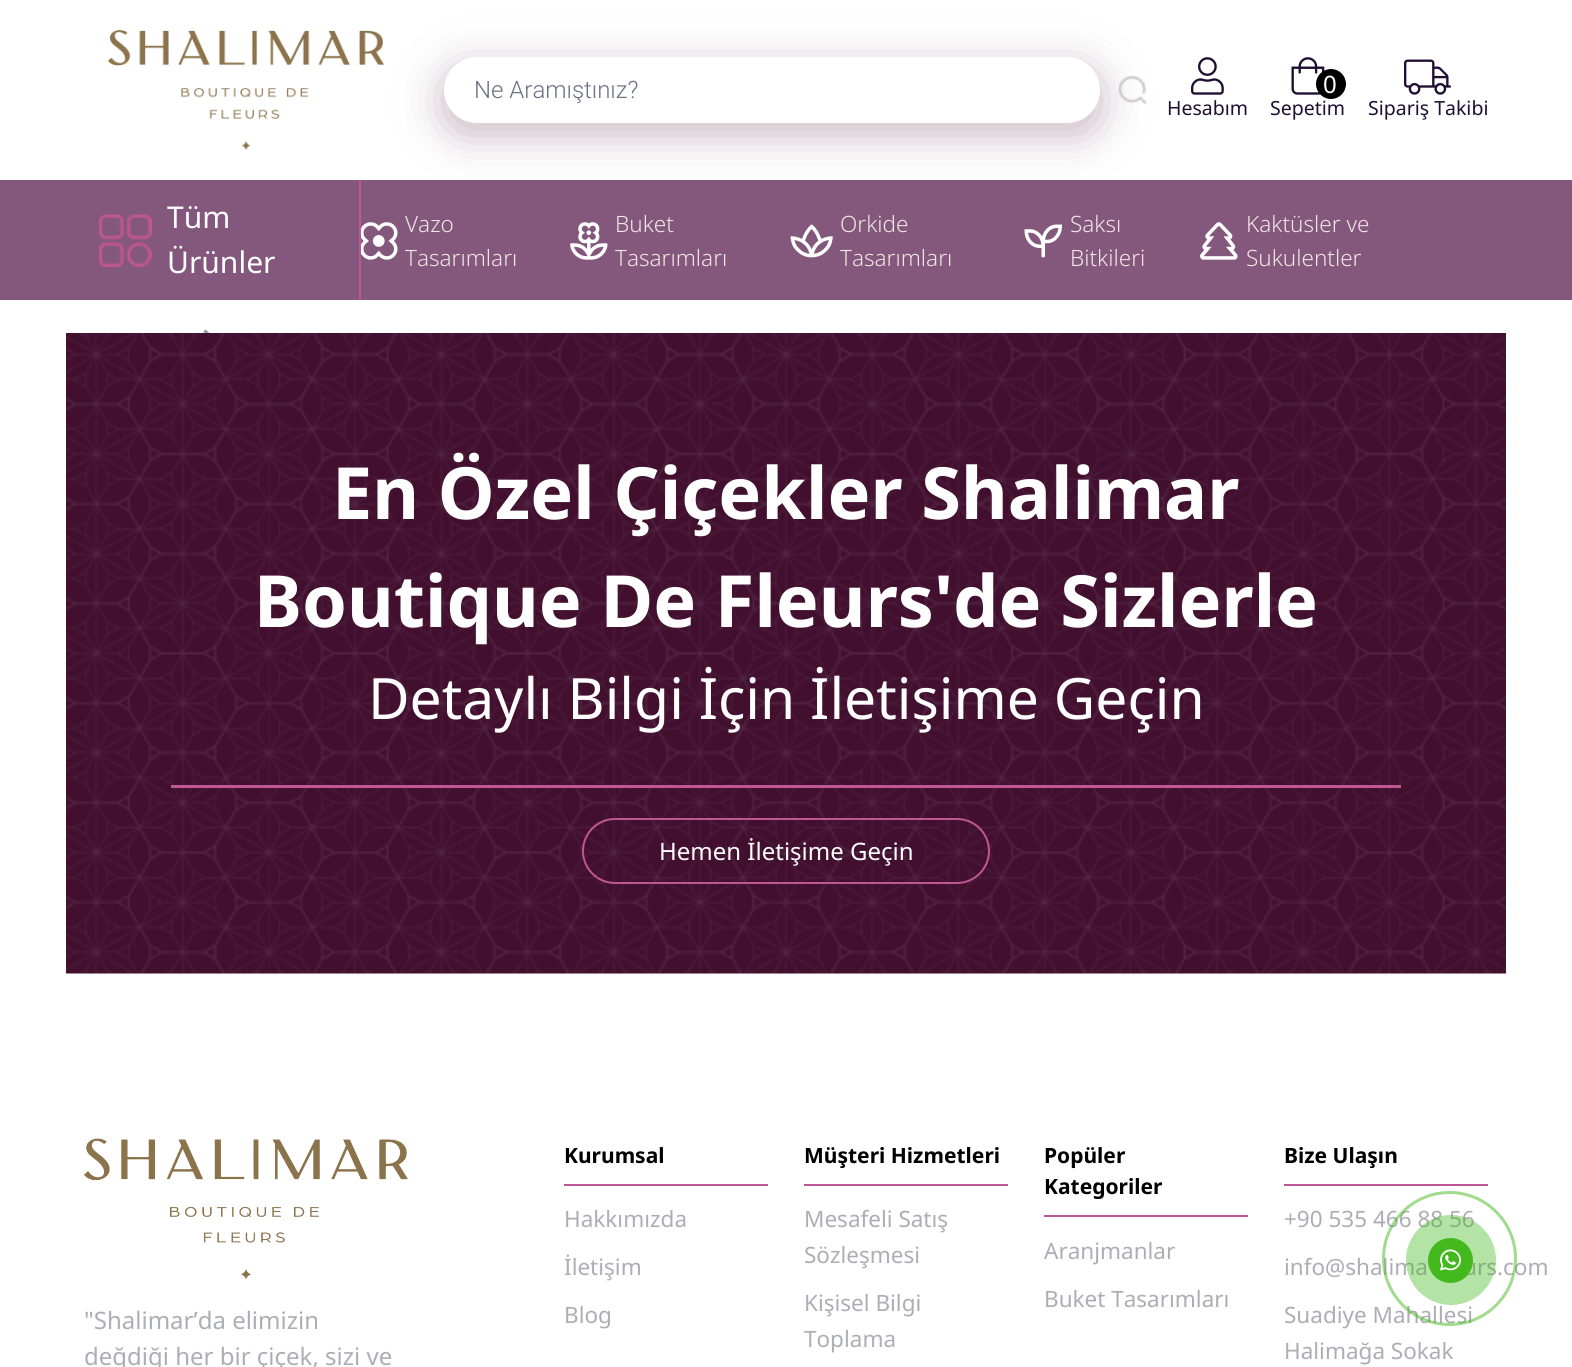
#include <cairo/cairo.h>
#include <math.h>
#include <stddef.h>


static void rounded_rect(cairo_t *cr, double x, double y, double w, double h, double r) {
  cairo_new_sub_path(cr);
  cairo_arc(cr, x + w - r, y + h - r, r, 0, M_PI / 2);
  cairo_arc(cr, x + r, y + h - r, r, M_PI / 2, M_PI);
  cairo_arc(cr, x + r, y + r, r, M_PI, 1.5 * M_PI);
  cairo_arc(cr, x + w - r, y + r, r, 1.5 * M_PI, 2 * M_PI);
  cairo_close_path(cr);
}

static void draw_shadow(cairo_t *cr, double x, double y, double w, double h, double r, double blur, double alpha) {
  cairo_push_group_with_content(cr, CAIRO_CONTENT_ALPHA);
  cairo_set_operator(cr, CAIRO_OPERATOR_SOURCE);
  for (int i = 15; i >= -15 && fmin(w, h) + blur * i / 3 > 0; i -= 2) {
    double e = blur * i / 6;
    cairo_set_source_rgba(cr, 0, 0, 0, alpha * erfc((i - 1) / 8.5) / 2);
    rounded_rect(cr, x - e, y - e, w + 2 * e, h + 2 * e, fmax(0, fmin(r + e + blur * .6, fmin(w, h) / 2 + e)));
    cairo_fill(cr);
  }
  cairo_pattern_t *soft = cairo_pop_group(cr);
  cairo_mask(cr, soft);
  cairo_pattern_destroy(soft);
}

static void draw_image(cairo_t *cr, const char *path, double x, double y, double w, double h) {
  cairo_surface_t *image = cairo_image_surface_create_from_png(path);
  cairo_save(cr);
  cairo_set_source_surface(cr, image, x, y);
  cairo_rectangle(cr, x, y, w, h);
  cairo_fill(cr);
  cairo_restore(cr);
  cairo_surface_destroy(image);
}

static void draw(cairo_t *cr) {
  cairo_set_source_rgb(cr, 1, 1, 1);
  cairo_paint(cr);
  draw_image(cr, "images/1.png", 108, 30, 276, 120);
  cairo_set_source_rgb(cr, 202 / 255.0, 183 / 255.0, 194 / 255.0);
  draw_shadow(cr, 444, 68, 656, 66, 33, 22, 1);
  cairo_set_source_rgb(cr, 1, 1, 1);
  rounded_rect(cr, 444, 57, 656, 66, 33);
  cairo_fill(cr);
  draw_image(cr, "images/2.png", 1118, 75, 29, 30);
  draw_image(cr, "images/3.png", 1191, 57, 33, 38);
  draw_image(cr, "images/4.png", 1291, 57, 34, 38);
  cairo_set_source_rgb(cr, 0, 0, 0);
  cairo_arc(cr, 1331, 84, 15, 0, 2 * M_PI);
  cairo_fill(cr);
  draw_image(cr, "images/5.png", 1404, 59, 47, 36);
  cairo_set_source_rgb(cr, 132 / 255.0, 87 / 255.0, 124 / 255.0);
  cairo_rectangle(cr, 0, 180, 1572, 120);
  cairo_fill(cr);
  cairo_set_source_rgb(cr, 191 / 255.0, 86 / 255.0, 149 / 255.0);
  cairo_rectangle(cr, 359, 180, 2, 120);
  cairo_fill(cr);
  draw_image(cr, "images/6.png", 99, 214, 53, 53);
  draw_image(cr, "images/7.png", 361, 222, 37, 38);
  draw_image(cr, "images/8.png", 570, 222, 38, 38);
  draw_image(cr, "images/9.png", 790, 224, 43, 34);
  draw_image(cr, "images/10.png", 1024, 224, 38, 34);
  draw_image(cr, "images/11.png", 1200, 222, 38, 38);
  draw_image(cr, "images/12.png", 203, 329, 7, 4);
  draw_image(cr, "images/13.png", 66, 333, 1440, 641);
  cairo_rectangle(cr, 171, 785, 1230, 3);
  cairo_fill(cr);
  rounded_rect(cr, 583, 819, 406, 64, 32);
  cairo_stroke(cr);
  draw_image(cr, "images/14.png", 84, 1138, 324, 142);
  cairo_rectangle(cr, 564, 1184, 204, 2);
  cairo_fill(cr);
  cairo_rectangle(cr, 804, 1184, 204, 2);
  cairo_fill(cr);
  cairo_rectangle(cr, 1044, 1215, 204, 2);
  cairo_fill(cr);
  cairo_rectangle(cr, 1284, 1184, 204, 2);
  cairo_fill(cr);
  cairo_select_font_face(cr, "Roboto Light", CAIRO_FONT_SLANT_NORMAL, CAIRO_FONT_WEIGHT_NORMAL);
  cairo_set_font_size(cr, 24);
  cairo_set_source_rgb(cr, 107 / 255.0, 114 / 255.0, 128 / 255.0);
  cairo_move_to(cr, 474, 98);
  cairo_show_text(cr, "Ne Aramıştınız?");
  cairo_select_font_face(cr, "Noto Sans", CAIRO_FONT_SLANT_NORMAL, CAIRO_FONT_WEIGHT_NORMAL);
  cairo_set_font_size(cr, 19.5);
  cairo_set_source_rgb(cr, 32 / 255.0, 14 / 255.0, 50 / 255.0);
  cairo_move_to(cr, 1167, 115);
  cairo_show_text(cr, "Hesabım");
  cairo_set_font_size(cr, 24);
  cairo_set_source_rgb(cr, 1, 1, 1);
  cairo_move_to(cr, 1323, 93);
  cairo_show_text(cr, "0");
  cairo_set_font_size(cr, 19.5);
  cairo_set_source_rgb(cr, 32 / 255.0, 14 / 255.0, 50 / 255.0);
  cairo_move_to(cr, 1270, 115);
  cairo_show_text(cr, "Sepetim");
  cairo_move_to(cr, 1368, 115);
  cairo_show_text(cr, "Sipariş Takibi");
  cairo_set_font_size(cr, 30);
  cairo_set_source_rgb(cr, 1, 1, 1);
  cairo_move_to(cr, 167, 228);
  cairo_show_text(cr, "Tüm");
  cairo_move_to(cr, 167, 273);
  cairo_show_text(cr, "Ürünler");
  cairo_select_font_face(cr, "Noto Sans Light", CAIRO_FONT_SLANT_NORMAL, CAIRO_FONT_WEIGHT_NORMAL);
  cairo_set_font_size(cr, 22.5);
  cairo_set_source_rgb(cr, 241 / 255.0, 229 / 255.0, 229 / 255.0);
  cairo_move_to(cr, 405, 232);
  cairo_show_text(cr, "Vazo");
  cairo_move_to(cr, 405, 266);
  cairo_show_text(cr, "Tasarımları");
  cairo_move_to(cr, 615, 232);
  cairo_show_text(cr, "Buket");
  cairo_move_to(cr, 615, 266);
  cairo_show_text(cr, "Tasarımları");
  cairo_move_to(cr, 840, 232);
  cairo_show_text(cr, "Orkide");
  cairo_move_to(cr, 840, 266);
  cairo_show_text(cr, "Tasarımları");
  cairo_move_to(cr, 1070, 232);
  cairo_show_text(cr, "Saksı");
  cairo_move_to(cr, 1070, 266);
  cairo_show_text(cr, "Bitkileri");
  cairo_move_to(cr, 1246, 232);
  cairo_show_text(cr, "Kaktüsler ve");
  cairo_move_to(cr, 1246, 266);
  cairo_show_text(cr, "Sukulentler");
  cairo_select_font_face(cr, "Noto Sans", CAIRO_FONT_SLANT_NORMAL, CAIRO_FONT_WEIGHT_BOLD);
  cairo_set_font_size(cr, 72);
  cairo_set_source_rgb(cr, 1, 1, 1);
  cairo_move_to(cr, 332, 519);
  cairo_show_text(cr, "En Özel Çiçekler Shalimar");
  cairo_move_to(cr, 254, 627);
  cairo_show_text(cr, "Boutique De Fleurs'de Sizlerle");
  cairo_select_font_face(cr, "Noto Sans", CAIRO_FONT_SLANT_NORMAL, CAIRO_FONT_WEIGHT_NORMAL);
  cairo_set_font_size(cr, 57);
  cairo_move_to(cr, 368, 719);
  cairo_show_text(cr, "Detaylı Bilgi İçin İletişime Geçin");
  cairo_set_font_size(cr, 24);
  cairo_move_to(cr, 659, 860);
  cairo_show_text(cr, "Hemen İletişime Geçin");
  cairo_set_source_rgb(cr, 173 / 255.0, 173 / 255.0, 181 / 255.0);
  cairo_move_to(cr, 84, 1329);
  cairo_show_text(cr, "\"Shalimar’da elimizin");
  cairo_move_to(cr, 84, 1365);
  cairo_show_text(cr, "değdiği her bir çiçek, sizi ve");
  cairo_select_font_face(cr, "Noto Sans", CAIRO_FONT_SLANT_NORMAL, CAIRO_FONT_WEIGHT_BOLD);
  cairo_set_font_size(cr, 21);
  cairo_set_source_rgb(cr, 0, 0, 0);
  cairo_move_to(cr, 564, 1163);
  cairo_show_text(cr, "Kurumsal");
  cairo_select_font_face(cr, "Noto Sans", CAIRO_FONT_SLANT_NORMAL, CAIRO_FONT_WEIGHT_NORMAL);
  cairo_set_font_size(cr, 22.5);
  cairo_set_source_rgb(cr, 173 / 255.0, 173 / 255.0, 181 / 255.0);
  cairo_move_to(cr, 564, 1227);
  cairo_show_text(cr, "Hakkımızda");
  cairo_move_to(cr, 564, 1275);
  cairo_show_text(cr, "İletişim");
  cairo_move_to(cr, 564, 1323);
  cairo_show_text(cr, "Blog");
  cairo_select_font_face(cr, "Noto Sans", CAIRO_FONT_SLANT_NORMAL, CAIRO_FONT_WEIGHT_BOLD);
  cairo_set_font_size(cr, 21);
  cairo_set_source_rgb(cr, 0, 0, 0);
  cairo_move_to(cr, 804, 1163);
  cairo_show_text(cr, "Müşteri Hizmetleri");
  cairo_select_font_face(cr, "Noto Sans", CAIRO_FONT_SLANT_NORMAL, CAIRO_FONT_WEIGHT_NORMAL);
  cairo_set_font_size(cr, 22.5);
  cairo_set_source_rgb(cr, 173 / 255.0, 173 / 255.0, 181 / 255.0);
  cairo_move_to(cr, 804, 1227);
  cairo_show_text(cr, "Mesafeli Satış");
  cairo_move_to(cr, 804, 1263);
  cairo_show_text(cr, "Sözleşmesi");
  cairo_move_to(cr, 804, 1311);
  cairo_show_text(cr, "Kişisel Bilgi");
  cairo_move_to(cr, 804, 1347);
  cairo_show_text(cr, "Toplama");
  cairo_select_font_face(cr, "Noto Sans", CAIRO_FONT_SLANT_NORMAL, CAIRO_FONT_WEIGHT_BOLD);
  cairo_set_font_size(cr, 21);
  cairo_set_source_rgb(cr, 0, 0, 0);
  cairo_move_to(cr, 1044, 1163);
  cairo_show_text(cr, "Popüler");
  cairo_move_to(cr, 1044, 1194);
  cairo_show_text(cr, "Kategoriler");
  cairo_select_font_face(cr, "Noto Sans", CAIRO_FONT_SLANT_NORMAL, CAIRO_FONT_WEIGHT_NORMAL);
  cairo_set_font_size(cr, 22.5);
  cairo_set_source_rgb(cr, 173 / 255.0, 173 / 255.0, 181 / 255.0);
  cairo_move_to(cr, 1044, 1259);
  cairo_show_text(cr, "Aranjmanlar");
  cairo_move_to(cr, 1044, 1307);
  cairo_show_text(cr, "Buket Tasarımları");
  cairo_select_font_face(cr, "Noto Sans", CAIRO_FONT_SLANT_NORMAL, CAIRO_FONT_WEIGHT_BOLD);
  cairo_set_font_size(cr, 21);
  cairo_set_source_rgb(cr, 0, 0, 0);
  cairo_move_to(cr, 1284, 1163);
  cairo_show_text(cr, "Bize Ulaşın");
  cairo_select_font_face(cr, "Noto Sans", CAIRO_FONT_SLANT_NORMAL, CAIRO_FONT_WEIGHT_NORMAL);
  cairo_set_font_size(cr, 22.5);
  cairo_set_source_rgb(cr, 173 / 255.0, 173 / 255.0, 181 / 255.0);
  cairo_move_to(cr, 1284, 1227);
  cairo_show_text(cr, "+90 535 466 88 56");
  cairo_move_to(cr, 1284, 1275);
  cairo_show_text(cr, "info@shalima");
  cairo_move_to(cr, 1463, 1275);
  cairo_show_text(cr, "urs.com");
  cairo_move_to(cr, 1284, 1323);
  cairo_show_text(cr, "Suadiye Mahallesi");
  cairo_move_to(cr, 1284, 1359);
  cairo_show_text(cr, "Halimağa Sokak");
  cairo_new_path(cr);
  cairo_arc(cr, 1449.5, 1258.5, 66, 0, 2 * M_PI);
  cairo_set_source_rgba(cr, 67 / 255.0, 185 / 255.0, 30 / 255.0, 0.5);
  cairo_set_line_width(cr, 3);
  cairo_stroke(cr);
  cairo_set_source_rgba(cr, 67 / 255.0, 185 / 255.0, 30 / 255.0, 0.4);
  cairo_arc(cr, 1451, 1260, 45, 0, 2 * M_PI);
  cairo_fill(cr);
  cairo_set_source_rgb(cr, 67 / 255.0, 185 / 255.0, 30 / 255.0);
  cairo_arc(cr, 1450.5, 1260.5, 22.5, 0, 2 * M_PI);
  cairo_fill(cr);
  draw_image(cr, "images/15.png", 1440, 1249, 21, 22);
}

int main(void) {
  cairo_surface_t *surface = cairo_image_surface_create(CAIRO_FORMAT_RGB24, 1572, 1367);
  cairo_t *cr = cairo_create(surface);
  cairo_font_options_t *options = cairo_font_options_create();
  cairo_font_options_set_hint_metrics(options, CAIRO_HINT_METRICS_OFF);
  cairo_font_options_set_hint_style(options, CAIRO_HINT_STYLE_NONE);
  cairo_set_font_options(cr, options);
  cairo_set_miter_limit(cr, 4);
  draw(cr);
  cairo_surface_write_to_png(surface, "out.png");
  cairo_font_options_destroy(options);
  cairo_destroy(cr);
  cairo_surface_destroy(surface);
  return 0;
}
